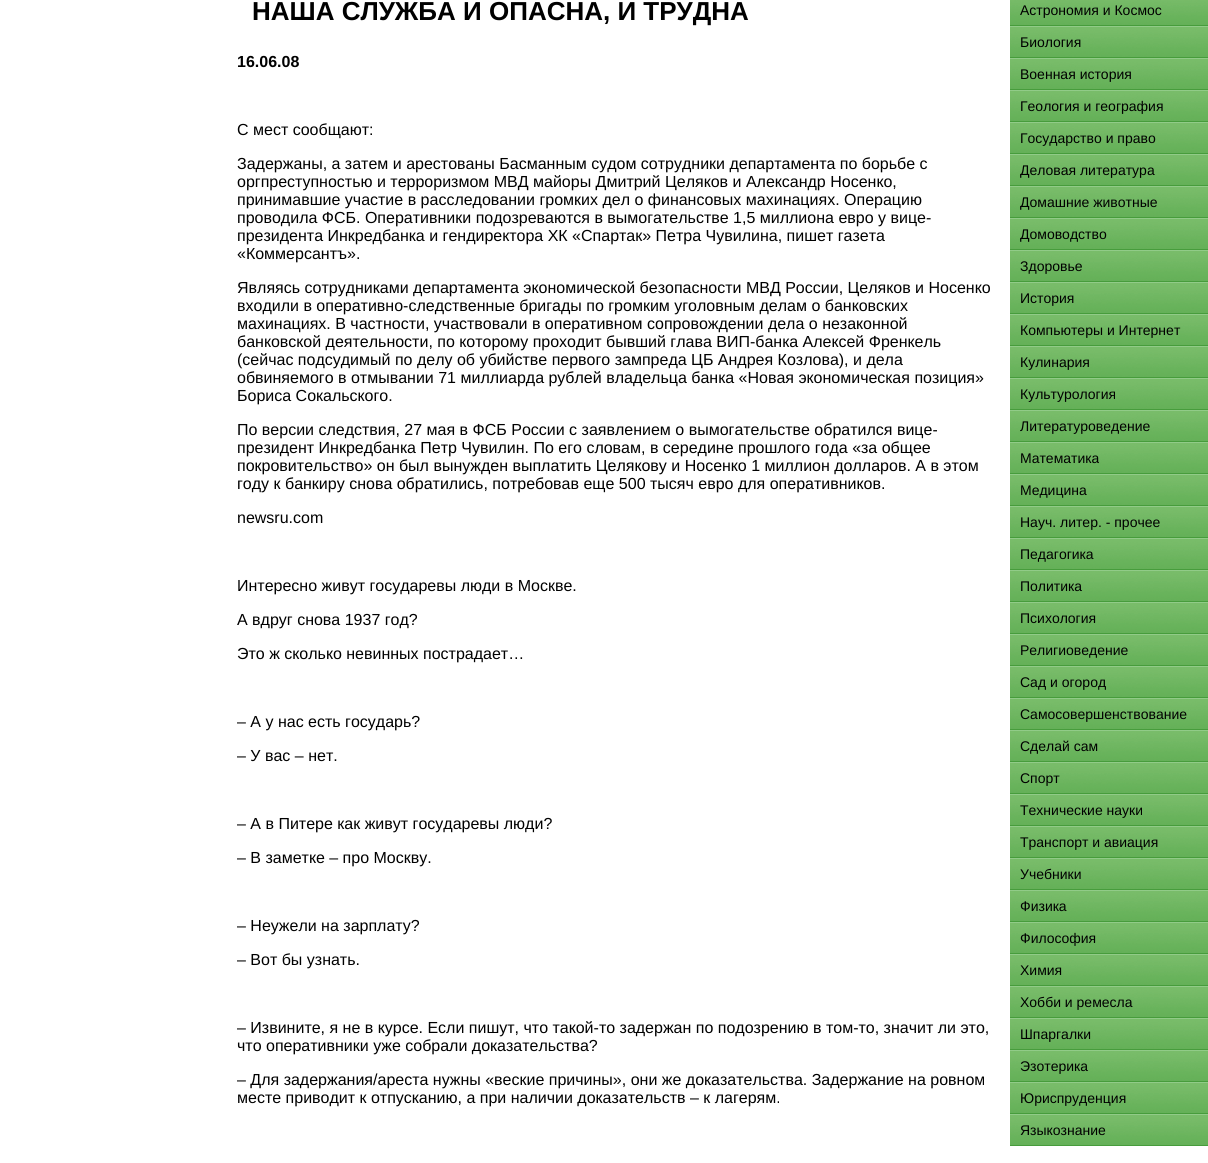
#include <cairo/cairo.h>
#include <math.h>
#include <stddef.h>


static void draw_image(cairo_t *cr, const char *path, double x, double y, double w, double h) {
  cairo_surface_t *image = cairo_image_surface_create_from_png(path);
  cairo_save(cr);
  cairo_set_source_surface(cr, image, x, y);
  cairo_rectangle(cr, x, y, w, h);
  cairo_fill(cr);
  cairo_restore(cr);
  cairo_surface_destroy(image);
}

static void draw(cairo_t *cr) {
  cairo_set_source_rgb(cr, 1, 1, 1);
  cairo_paint(cr);
  draw_image(cr, "images/1.png", 1010, 0, 198, 26);
  draw_image(cr, "images/2.png", 1010, 26, 198, 32);
  draw_image(cr, "images/2.png", 1010, 58, 198, 32);
  draw_image(cr, "images/2.png", 1010, 90, 198, 32);
  draw_image(cr, "images/2.png", 1010, 122, 198, 32);
  draw_image(cr, "images/2.png", 1010, 154, 198, 32);
  draw_image(cr, "images/2.png", 1010, 186, 198, 32);
  draw_image(cr, "images/2.png", 1010, 218, 198, 32);
  draw_image(cr, "images/2.png", 1010, 250, 198, 32);
  draw_image(cr, "images/2.png", 1010, 282, 198, 32);
  draw_image(cr, "images/2.png", 1010, 314, 198, 32);
  draw_image(cr, "images/2.png", 1010, 346, 198, 32);
  draw_image(cr, "images/2.png", 1010, 378, 198, 32);
  draw_image(cr, "images/2.png", 1010, 410, 198, 32);
  draw_image(cr, "images/2.png", 1010, 442, 198, 32);
  draw_image(cr, "images/2.png", 1010, 474, 198, 32);
  draw_image(cr, "images/2.png", 1010, 506, 198, 32);
  draw_image(cr, "images/2.png", 1010, 538, 198, 32);
  draw_image(cr, "images/2.png", 1010, 570, 198, 32);
  draw_image(cr, "images/2.png", 1010, 602, 198, 32);
  draw_image(cr, "images/2.png", 1010, 634, 198, 32);
  draw_image(cr, "images/2.png", 1010, 666, 198, 32);
  draw_image(cr, "images/2.png", 1010, 698, 198, 32);
  draw_image(cr, "images/2.png", 1010, 730, 198, 32);
  draw_image(cr, "images/2.png", 1010, 762, 198, 32);
  draw_image(cr, "images/2.png", 1010, 794, 198, 32);
  draw_image(cr, "images/2.png", 1010, 826, 198, 32);
  draw_image(cr, "images/2.png", 1010, 858, 198, 32);
  draw_image(cr, "images/2.png", 1010, 890, 198, 32);
  draw_image(cr, "images/2.png", 1010, 922, 198, 32);
  draw_image(cr, "images/2.png", 1010, 954, 198, 32);
  draw_image(cr, "images/2.png", 1010, 986, 198, 32);
  draw_image(cr, "images/2.png", 1010, 1018, 198, 32);
  draw_image(cr, "images/2.png", 1010, 1050, 198, 32);
  draw_image(cr, "images/2.png", 1010, 1082, 198, 32);
  draw_image(cr, "images/2.png", 1010, 1114, 198, 32);
  cairo_select_font_face(cr, "Liberation Sans", CAIRO_FONT_SLANT_NORMAL, CAIRO_FONT_WEIGHT_BOLD);
  cairo_set_font_size(cr, 26);
  cairo_set_source_rgb(cr, 0, 0, 0);
  cairo_move_to(cr, 252, 20);
  cairo_show_text(cr, "НАША СЛУЖБА И ОПАСНА, И ТРУДНА");
  cairo_set_font_size(cr, 16);
  cairo_move_to(cr, 237, 67);
  cairo_show_text(cr, "16.06.08");
  cairo_select_font_face(cr, "Liberation Sans", CAIRO_FONT_SLANT_NORMAL, CAIRO_FONT_WEIGHT_NORMAL);
  cairo_move_to(cr, 237, 135);
  cairo_show_text(cr, "С мест сообщают:");
  cairo_move_to(cr, 237, 169);
  cairo_show_text(cr, "Задержаны, а затем и арестованы Басманным судом сотрудники департамента по борьбе с");
  cairo_move_to(cr, 237, 187);
  cairo_show_text(cr, "оргпреступностью и терроризмом МВД майоры Дмитрий Целяков и Александр Носенко,");
  cairo_move_to(cr, 237, 205);
  cairo_show_text(cr, "принимавшие участие в расследовании громких дел о финансовых махинациях. Операцию");
  cairo_move_to(cr, 237, 223);
  cairo_show_text(cr, "проводила ФСБ. Оперативники подозреваются в вымогательстве 1,5 миллиона евро у вице-");
  cairo_move_to(cr, 237, 241);
  cairo_show_text(cr, "президента Инкредбанка и гендиректора ХК «Спартак» Петра Чувилина, пишет газета");
  cairo_move_to(cr, 237, 259);
  cairo_show_text(cr, "«Коммерсантъ».");
  cairo_move_to(cr, 237, 293);
  cairo_show_text(cr, "Являясь сотрудниками департамента экономической безопасности МВД России, Целяков и Носенко");
  cairo_move_to(cr, 237, 311);
  cairo_show_text(cr, "входили в оперативно-следственные бригады по громким уголовным делам о банковских");
  cairo_move_to(cr, 237, 329);
  cairo_show_text(cr, "махинациях. В частности, участвовали в оперативном сопровождении дела о незаконной");
  cairo_move_to(cr, 237, 347);
  cairo_show_text(cr, "банковской деятельности, по которому проходит бывший глава ВИП-банка Алексей Френкель");
  cairo_move_to(cr, 237, 365);
  cairo_show_text(cr, "(сейчас подсудимый по делу об убийстве первого зампреда ЦБ Андрея Козлова), и дела");
  cairo_move_to(cr, 237, 383);
  cairo_show_text(cr, "обвиняемого в отмывании 71 миллиарда рублей владельца банка «Новая экономическая позиция»");
  cairo_move_to(cr, 237, 401);
  cairo_show_text(cr, "Бориса Сокальского.");
  cairo_move_to(cr, 237, 435);
  cairo_show_text(cr, "По версии следствия, 27 мая в ФСБ России с заявлением о вымогательстве обратился вице-");
  cairo_move_to(cr, 237, 453);
  cairo_show_text(cr, "президент Инкредбанка Петр Чувилин. По его словам, в середине прошлого года «за общее");
  cairo_move_to(cr, 237, 471);
  cairo_show_text(cr, "покровительство» он был вынужден выплатить Целякову и Носенко 1 миллион долларов. А в этом");
  cairo_move_to(cr, 237, 489);
  cairo_show_text(cr, "году к банкиру снова обратились, потребовав еще 500 тысяч евро для оперативников.");
  cairo_move_to(cr, 237, 523);
  cairo_show_text(cr, "newsru.com");
  cairo_move_to(cr, 237, 591);
  cairo_show_text(cr, "Интересно живут государевы люди в Москве.");
  cairo_move_to(cr, 237, 625);
  cairo_show_text(cr, "А вдруг снова 1937 год?");
  cairo_move_to(cr, 237, 659);
  cairo_show_text(cr, "Это ж сколько невинных пострадает…");
  cairo_move_to(cr, 237, 727);
  cairo_show_text(cr, "– А у нас есть государь?");
  cairo_move_to(cr, 237, 761);
  cairo_show_text(cr, "– У вас – нет.");
  cairo_move_to(cr, 237, 829);
  cairo_show_text(cr, "– А в Питере как живут государевы люди?");
  cairo_move_to(cr, 237, 863);
  cairo_show_text(cr, "– В заметке – про Москву.");
  cairo_move_to(cr, 237, 931);
  cairo_show_text(cr, "– Неужели на зарплату?");
  cairo_move_to(cr, 237, 965);
  cairo_show_text(cr, "– Вот бы узнать.");
  cairo_move_to(cr, 237, 1033);
  cairo_show_text(cr, "– Извините, я не в курсе. Если пишут, что такой-то задержан по подозрению в том-то, значит ли это,");
  cairo_move_to(cr, 237, 1051);
  cairo_show_text(cr, "что оперативники уже собрали доказательства?");
  cairo_move_to(cr, 237, 1085);
  cairo_show_text(cr, "– Для задержания/ареста нужны «веские причины», они же доказательства. Задержание на ровном");
  cairo_move_to(cr, 237, 1103);
  cairo_show_text(cr, "месте приводит к отпусканию, а при наличии доказательств – к лагерям.");
  cairo_set_font_size(cr, 14);
  cairo_move_to(cr, 1020, 15);
  cairo_show_text(cr, "Астрономия и Космос");
  cairo_move_to(cr, 1020, 47);
  cairo_show_text(cr, "Биология");
  cairo_move_to(cr, 1020, 79);
  cairo_show_text(cr, "Военная история");
  cairo_move_to(cr, 1020, 111);
  cairo_show_text(cr, "Геология и география");
  cairo_move_to(cr, 1020, 143);
  cairo_show_text(cr, "Государство и право");
  cairo_move_to(cr, 1020, 175);
  cairo_show_text(cr, "Деловая литература");
  cairo_move_to(cr, 1020, 207);
  cairo_show_text(cr, "Домашние животные");
  cairo_move_to(cr, 1020, 239);
  cairo_show_text(cr, "Домоводство");
  cairo_move_to(cr, 1020, 271);
  cairo_show_text(cr, "Здоровье");
  cairo_move_to(cr, 1020, 303);
  cairo_show_text(cr, "История");
  cairo_move_to(cr, 1020, 335);
  cairo_show_text(cr, "Компьютеры и Интернет");
  cairo_move_to(cr, 1020, 367);
  cairo_show_text(cr, "Кулинария");
  cairo_move_to(cr, 1020, 399);
  cairo_show_text(cr, "Культурология");
  cairo_move_to(cr, 1020, 431);
  cairo_show_text(cr, "Литературоведение");
  cairo_move_to(cr, 1020, 463);
  cairo_show_text(cr, "Математика");
  cairo_move_to(cr, 1020, 495);
  cairo_show_text(cr, "Медицина");
  cairo_move_to(cr, 1020, 527);
  cairo_show_text(cr, "Науч. литер. - прочее");
  cairo_move_to(cr, 1020, 559);
  cairo_show_text(cr, "Педагогика");
  cairo_move_to(cr, 1020, 591);
  cairo_show_text(cr, "Политика");
  cairo_move_to(cr, 1020, 623);
  cairo_show_text(cr, "Психология");
  cairo_move_to(cr, 1020, 655);
  cairo_show_text(cr, "Религиоведение");
  cairo_move_to(cr, 1020, 687);
  cairo_show_text(cr, "Сад и огород");
  cairo_move_to(cr, 1020, 719);
  cairo_show_text(cr, "Самосовершенствование");
  cairo_move_to(cr, 1020, 751);
  cairo_show_text(cr, "Сделай сам");
  cairo_move_to(cr, 1020, 783);
  cairo_show_text(cr, "Спорт");
  cairo_move_to(cr, 1020, 815);
  cairo_show_text(cr, "Технические науки");
  cairo_move_to(cr, 1020, 847);
  cairo_show_text(cr, "Транспорт и авиация");
  cairo_move_to(cr, 1020, 879);
  cairo_show_text(cr, "Учебники");
  cairo_move_to(cr, 1020, 911);
  cairo_show_text(cr, "Физика");
  cairo_move_to(cr, 1020, 943);
  cairo_show_text(cr, "Философия");
  cairo_move_to(cr, 1020, 975);
  cairo_show_text(cr, "Химия");
  cairo_move_to(cr, 1020, 1007);
  cairo_show_text(cr, "Хобби и ремесла");
  cairo_move_to(cr, 1020, 1039);
  cairo_show_text(cr, "Шпаргалки");
  cairo_move_to(cr, 1020, 1071);
  cairo_show_text(cr, "Эзотерика");
  cairo_move_to(cr, 1020, 1103);
  cairo_show_text(cr, "Юриспруденция");
  cairo_move_to(cr, 1020, 1135);
  cairo_show_text(cr, "Языкознание");
}

int main(void) {
  cairo_surface_t *surface = cairo_image_surface_create(CAIRO_FORMAT_RGB24, 1208, 1163);
  cairo_t *cr = cairo_create(surface);
  cairo_font_options_t *options = cairo_font_options_create();
  cairo_font_options_set_hint_metrics(options, CAIRO_HINT_METRICS_OFF);
  cairo_font_options_set_hint_style(options, CAIRO_HINT_STYLE_NONE);
  cairo_set_font_options(cr, options);
  cairo_set_miter_limit(cr, 4);
  draw(cr);
  cairo_surface_write_to_png(surface, "out.png");
  cairo_font_options_destroy(options);
  cairo_destroy(cr);
  cairo_surface_destroy(surface);
  return 0;
}
